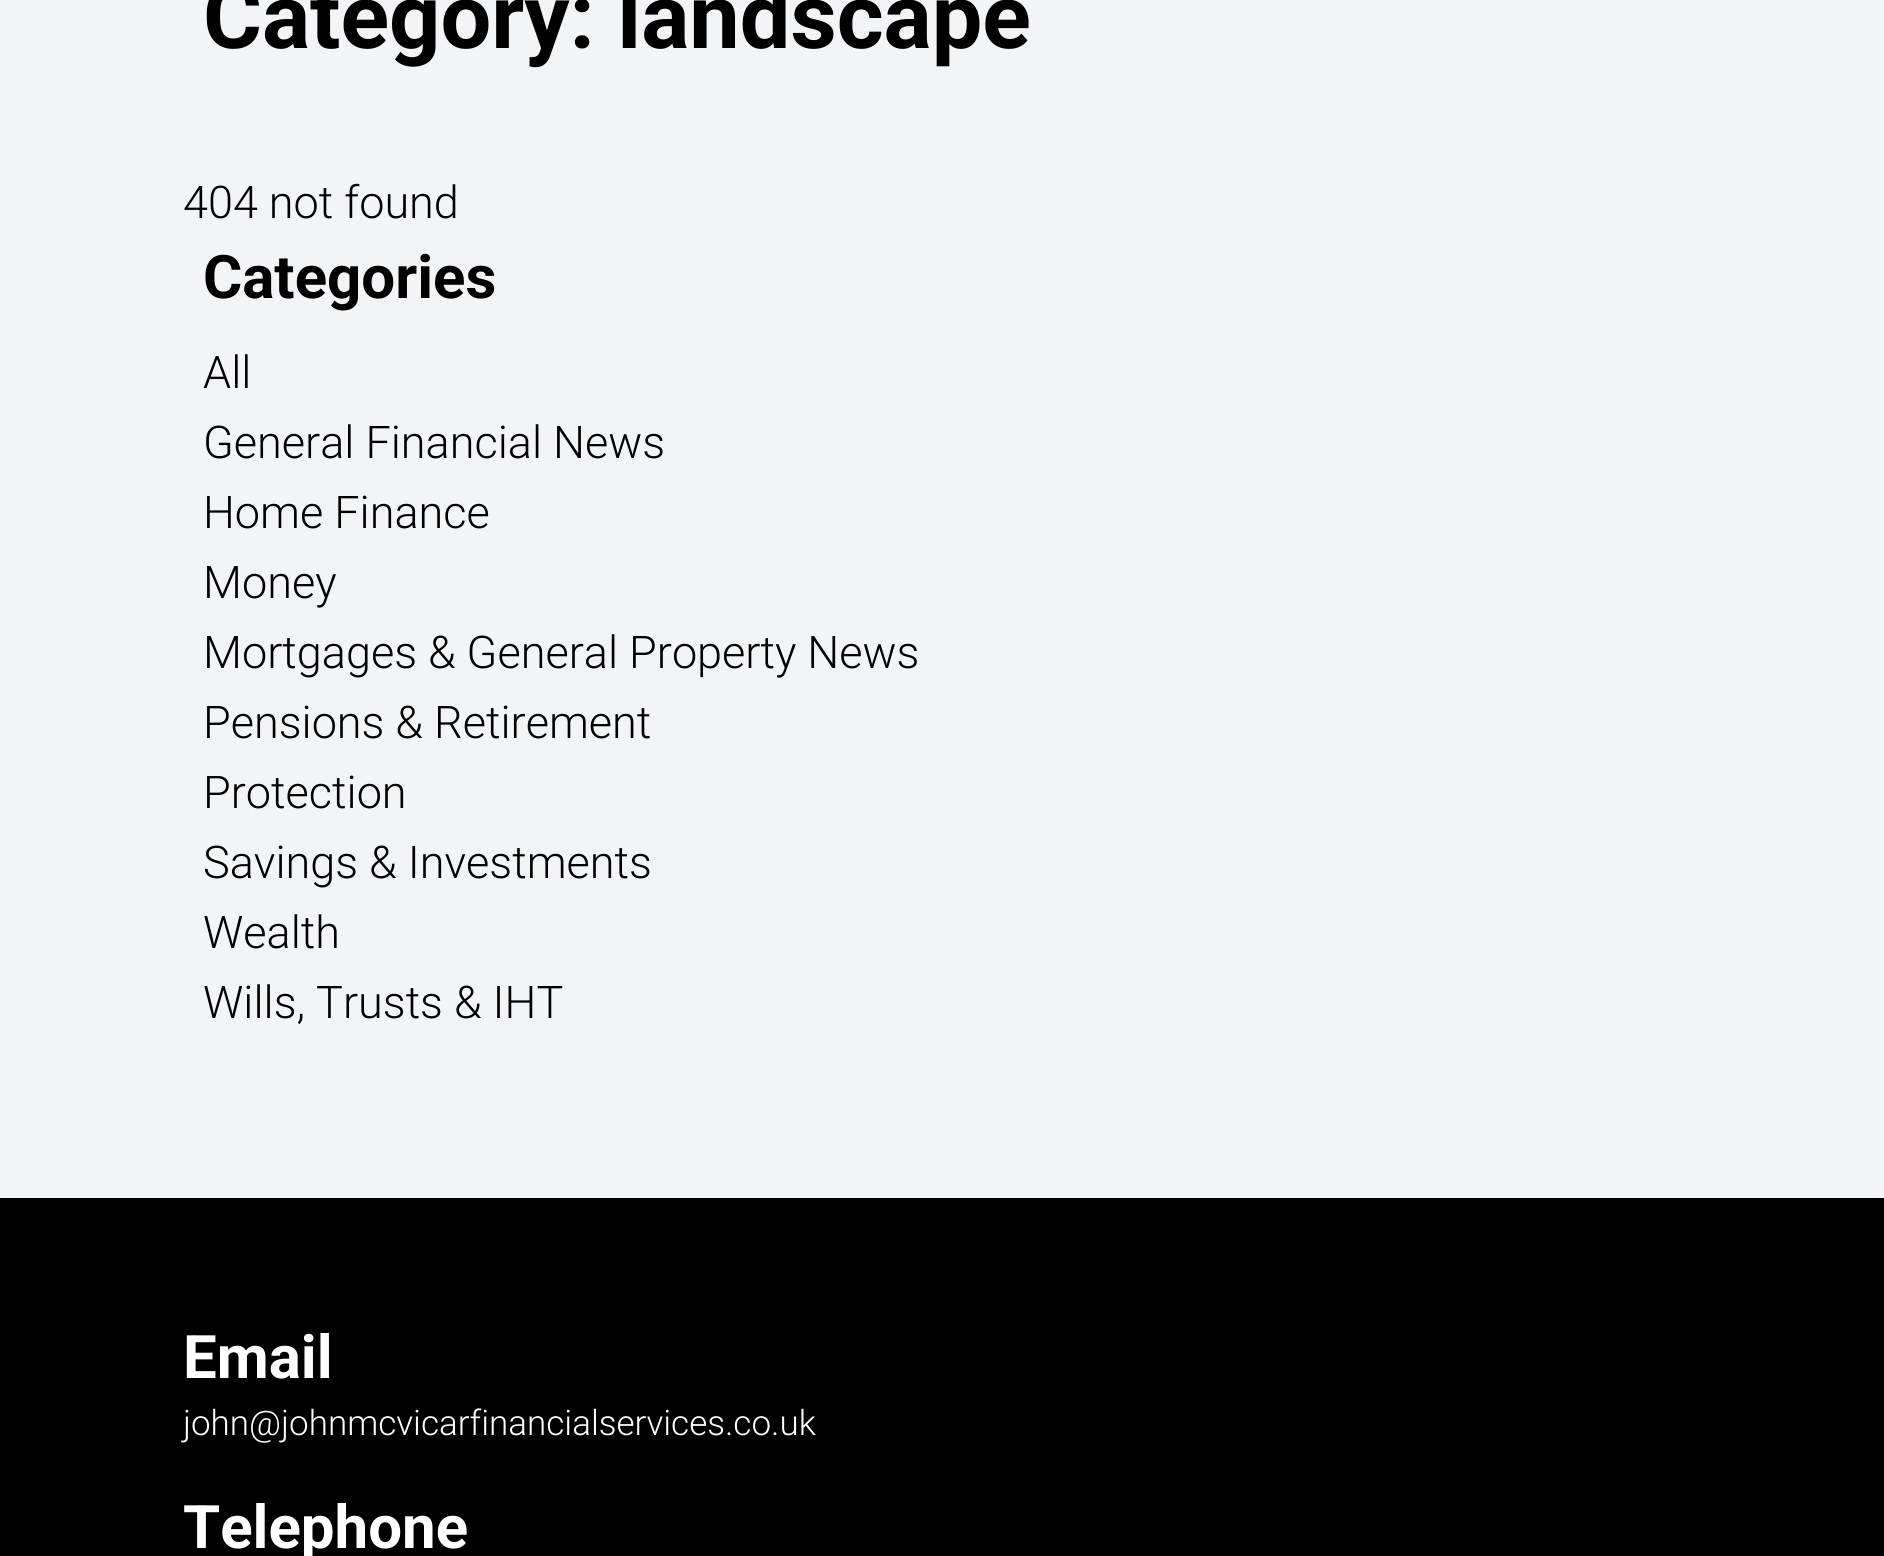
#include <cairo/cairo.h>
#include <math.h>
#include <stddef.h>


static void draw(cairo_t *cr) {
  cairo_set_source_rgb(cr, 243 / 255.0, 244 / 255.0, 246 / 255.0);
  cairo_paint(cr);
  cairo_set_source_rgb(cr, 0, 0, 0);
  cairo_rectangle(cr, 0, 1198, 1884, 358);
  cairo_fill(cr);
  cairo_select_font_face(cr, "Roboto", CAIRO_FONT_SLANT_NORMAL, CAIRO_FONT_WEIGHT_BOLD);
  cairo_set_font_size(cr, 90);
  cairo_move_to(cr, 203, 48);
  cairo_show_text(cr, "Category: landscape");
  cairo_select_font_face(cr, "Roboto Light", CAIRO_FONT_SLANT_NORMAL, CAIRO_FONT_WEIGHT_NORMAL);
  cairo_set_font_size(cr, 45);
  cairo_move_to(cr, 183, 218);
  cairo_show_text(cr, "404 not found");
  cairo_select_font_face(cr, "Roboto", CAIRO_FONT_SLANT_NORMAL, CAIRO_FONT_WEIGHT_BOLD);
  cairo_set_font_size(cr, 60);
  cairo_move_to(cr, 203, 298);
  cairo_show_text(cr, "Categories");
  cairo_select_font_face(cr, "Roboto Light", CAIRO_FONT_SLANT_NORMAL, CAIRO_FONT_WEIGHT_NORMAL);
  cairo_set_font_size(cr, 45);
  cairo_move_to(cr, 203, 388);
  cairo_show_text(cr, "All");
  cairo_move_to(cr, 203, 458);
  cairo_show_text(cr, "General Financial News");
  cairo_move_to(cr, 203, 528);
  cairo_show_text(cr, "Home Finance");
  cairo_move_to(cr, 203, 598);
  cairo_show_text(cr, "Money");
  cairo_move_to(cr, 203, 668);
  cairo_show_text(cr, "Mortgages & General Property News");
  cairo_move_to(cr, 203, 738);
  cairo_show_text(cr, "Pensions & Retirement");
  cairo_move_to(cr, 203, 808);
  cairo_show_text(cr, "Protection");
  cairo_move_to(cr, 203, 878);
  cairo_show_text(cr, "Savings & Investments");
  cairo_move_to(cr, 203, 948);
  cairo_show_text(cr, "Wealth");
  cairo_move_to(cr, 203, 1018);
  cairo_show_text(cr, "Wills, Trusts & IHT");
  cairo_select_font_face(cr, "Roboto", CAIRO_FONT_SLANT_NORMAL, CAIRO_FONT_WEIGHT_BOLD);
  cairo_set_font_size(cr, 60);
  cairo_set_source_rgb(cr, 1, 1, 1);
  cairo_move_to(cr, 183, 1378);
  cairo_show_text(cr, "Email");
  cairo_select_font_face(cr, "Roboto Light", CAIRO_FONT_SLANT_NORMAL, CAIRO_FONT_WEIGHT_NORMAL);
  cairo_set_font_size(cr, 35);
  cairo_move_to(cr, 183, 1435);
  cairo_show_text(cr, "john@johnmcvicarfinancialservices.co.uk");
  cairo_select_font_face(cr, "Roboto", CAIRO_FONT_SLANT_NORMAL, CAIRO_FONT_WEIGHT_BOLD);
  cairo_set_font_size(cr, 60);
  cairo_move_to(cr, 183, 1548);
  cairo_show_text(cr, "Telephone");
}

int main(void) {
  cairo_surface_t *surface = cairo_image_surface_create(CAIRO_FORMAT_RGB24, 1884, 1556);
  cairo_t *cr = cairo_create(surface);
  cairo_font_options_t *options = cairo_font_options_create();
  cairo_font_options_set_hint_metrics(options, CAIRO_HINT_METRICS_OFF);
  cairo_font_options_set_hint_style(options, CAIRO_HINT_STYLE_NONE);
  cairo_set_font_options(cr, options);
  cairo_set_miter_limit(cr, 4);
  draw(cr);
  cairo_surface_write_to_png(surface, "out.png");
  cairo_font_options_destroy(options);
  cairo_destroy(cr);
  cairo_surface_destroy(surface);
  return 0;
}
